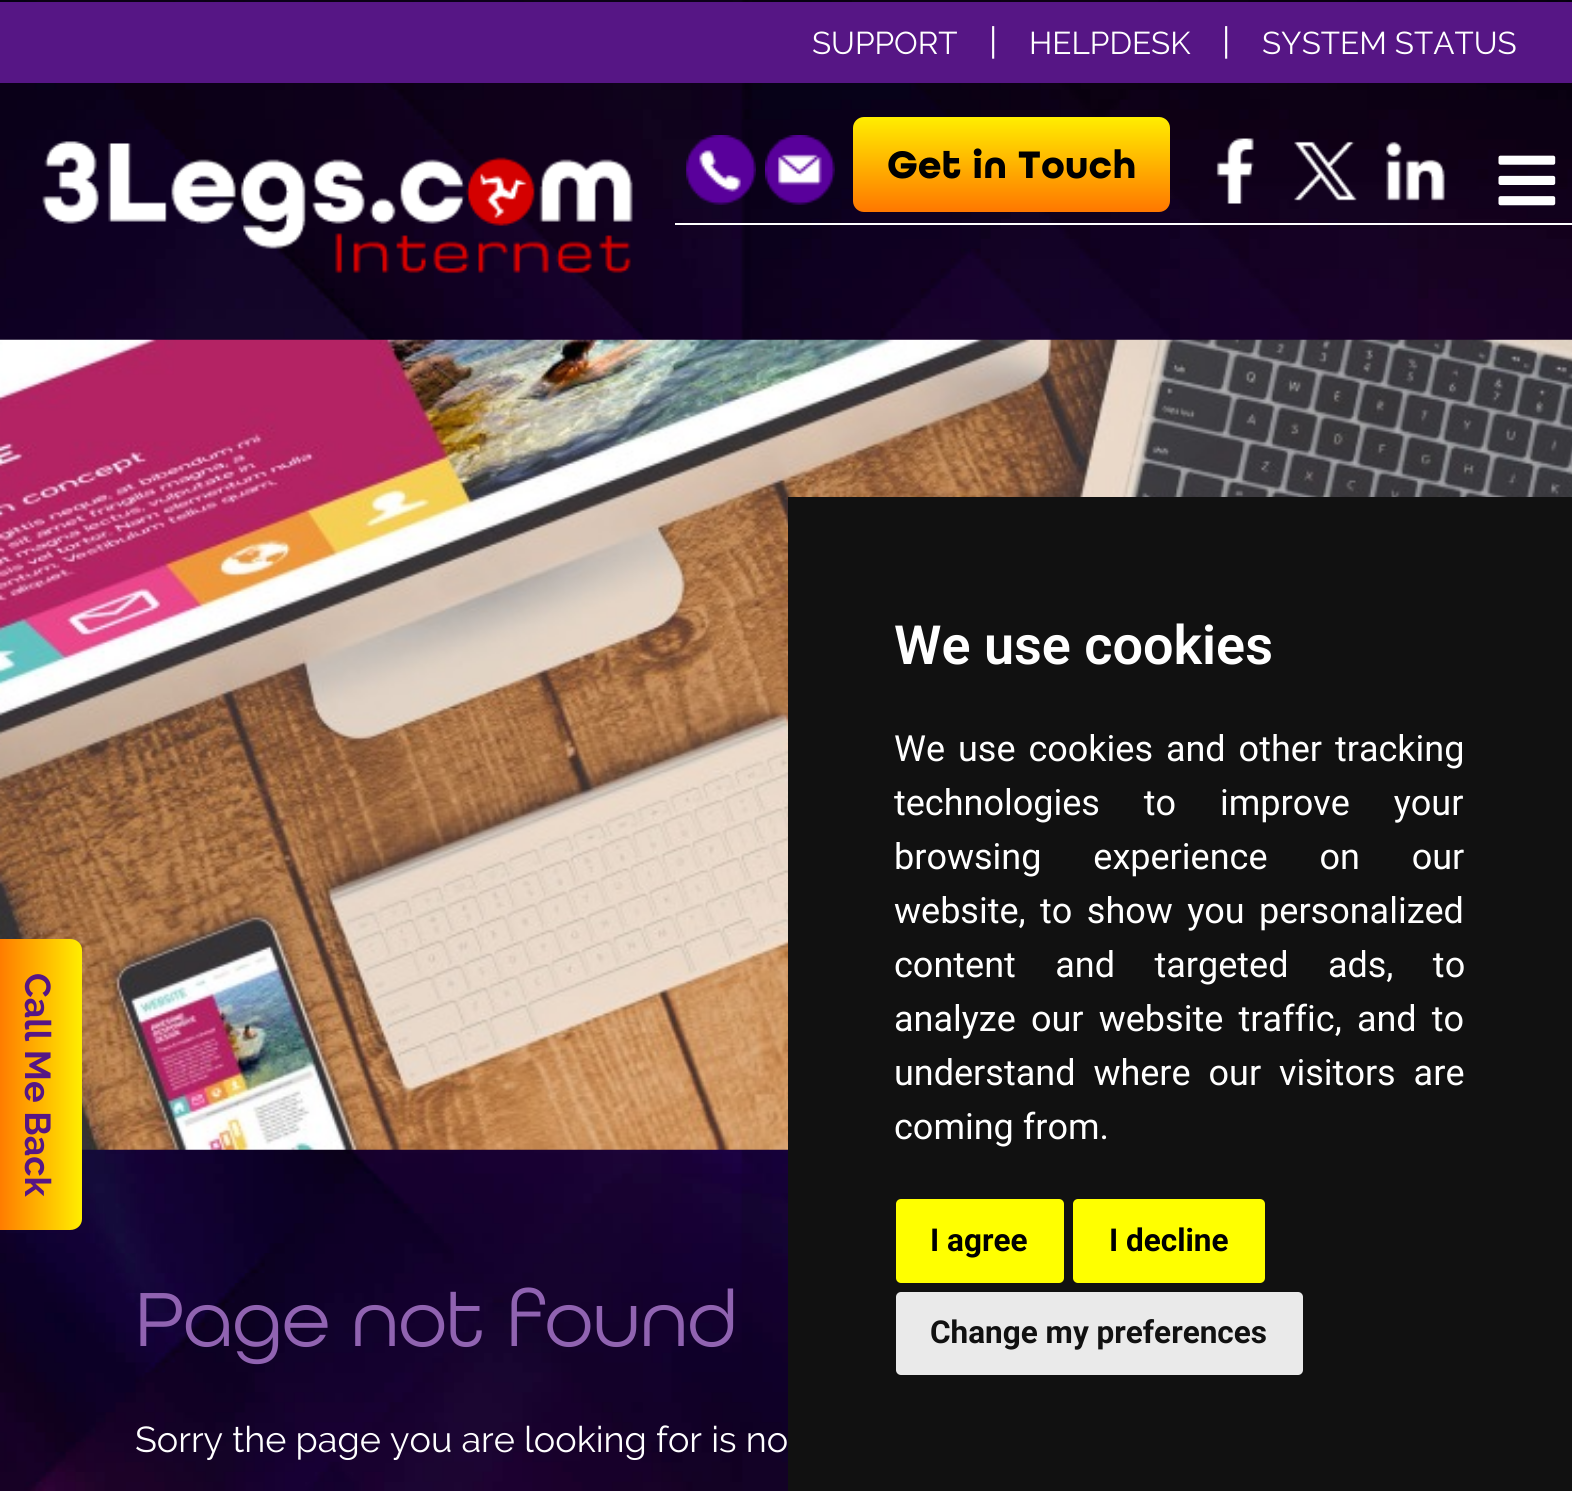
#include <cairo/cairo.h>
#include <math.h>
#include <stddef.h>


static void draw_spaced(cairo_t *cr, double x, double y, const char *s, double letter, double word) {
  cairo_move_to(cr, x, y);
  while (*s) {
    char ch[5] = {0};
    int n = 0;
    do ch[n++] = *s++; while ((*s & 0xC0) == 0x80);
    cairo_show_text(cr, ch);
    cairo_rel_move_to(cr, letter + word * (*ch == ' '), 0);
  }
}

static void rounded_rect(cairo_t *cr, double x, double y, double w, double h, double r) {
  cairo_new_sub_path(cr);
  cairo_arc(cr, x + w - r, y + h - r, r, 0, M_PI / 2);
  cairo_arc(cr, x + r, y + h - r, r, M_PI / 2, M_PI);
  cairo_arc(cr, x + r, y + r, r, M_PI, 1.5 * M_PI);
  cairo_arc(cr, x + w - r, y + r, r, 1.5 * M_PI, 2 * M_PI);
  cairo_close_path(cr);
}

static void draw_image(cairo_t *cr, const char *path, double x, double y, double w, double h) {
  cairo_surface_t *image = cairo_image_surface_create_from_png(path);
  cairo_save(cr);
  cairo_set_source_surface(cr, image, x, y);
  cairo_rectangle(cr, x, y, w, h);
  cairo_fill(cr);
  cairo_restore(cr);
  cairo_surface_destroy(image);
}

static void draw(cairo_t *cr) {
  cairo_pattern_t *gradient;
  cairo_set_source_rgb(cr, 1, 1, 1);
  cairo_paint(cr);
  draw_image(cr, "images/1.png", 0, 0, 1572, 1491);
  cairo_set_source_rgb(cr, 86 / 255.0, 22 / 255.0, 133 / 255.0);
  cairo_rectangle(cr, 0, 2, 1572, 81);
  cairo_fill(cr);
  draw_image(cr, "images/2.png", 42, 141, 591, 133);
  cairo_set_source_rgb(cr, 1, 1, 1);
  cairo_rectangle(cr, 675, 223, 897, 2);
  cairo_fill(cr);
  draw_image(cr, "images/3.png", 686, 135, 70, 70);
  draw_image(cr, "images/4.png", 765, 135, 70, 70);
  gradient = cairo_pattern_create_linear(1011, 117, 1011, 212);
  cairo_pattern_add_color_stop_rgba(gradient, 0, 1, 238 / 255.0, 0, 1);
  cairo_pattern_add_color_stop_rgba(gradient, 1, 1, 119 / 255.0, 0, 1);
  cairo_set_source(cr, gradient);
  cairo_pattern_destroy(gradient);
  rounded_rect(cr, 853, 117, 317, 95, 11);
  cairo_fill(cr);
  draw_image(cr, "images/5.png", 1216, 138, 38, 66);
  draw_image(cr, "images/6.png", 1294, 141, 63, 60);
  draw_image(cr, "images/7.png", 1386, 141, 59, 60);
  draw_image(cr, "images/8.png", 1498, 155, 58, 51);
  draw_image(cr, "images/9.png", 0, 339, 1572, 811);
  gradient = cairo_pattern_create_linear(82, 1084, -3.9, 1084);
  cairo_pattern_add_color_stop_rgba(gradient, 0, 1, 238 / 255.0, 0, 1);
  cairo_pattern_add_color_stop_rgba(gradient, 1, 1, 119 / 255.0, 0, 1);
  cairo_set_source(cr, gradient);
  cairo_pattern_destroy(gradient);
  cairo_new_path(cr);
  cairo_move_to(cr, 82, 950);
  cairo_line_to(cr, 82, 1219);
  cairo_curve_to(cr, 82, 1225, 77, 1230, 70, 1230);
  cairo_line_to(cr, -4, 1230);
  cairo_line_to(cr, -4, 939);
  cairo_line_to(cr, 70, 939);
  cairo_curve_to(cr, 77, 939, 82, 944, 82, 950);
  cairo_close_path(cr);
  cairo_fill(cr);
  cairo_set_source_rgb(cr, 17 / 255.0, 17 / 255.0, 17 / 255.0);
  cairo_rectangle(cr, 788, 497, 784, 994);
  cairo_fill(cr);
  cairo_set_source_rgb(cr, 1, 1, 0);
  rounded_rect(cr, 896, 1199, 168, 84, 5);
  cairo_fill(cr);
  rounded_rect(cr, 1073, 1199, 192, 84, 5);
  cairo_fill(cr);
  cairo_set_source_rgb(cr, 234 / 255.0, 234 / 255.0, 234 / 255.0);
  rounded_rect(cr, 896, 1292, 407, 83, 5);
  cairo_fill(cr);
  cairo_select_font_face(cr, "Raleway", CAIRO_FONT_SLANT_NORMAL, CAIRO_FONT_WEIGHT_NORMAL);
  cairo_set_font_size(cr, 31.5);
  cairo_set_source_rgb(cr, 1, 1, 1);
  cairo_move_to(cr, 812, 54);
  cairo_show_text(cr, "SUPPORT");
  cairo_set_font_size(cr, 36);
  cairo_move_to(cr, 989, 54);
  cairo_show_text(cr, "|");
  cairo_set_font_size(cr, 31.5);
  cairo_move_to(cr, 1029, 54);
  cairo_show_text(cr, "HELPDESK");
  cairo_set_font_size(cr, 36);
  cairo_move_to(cr, 1222, 54);
  cairo_show_text(cr, "|");
  cairo_set_font_size(cr, 31.5);
  cairo_move_to(cr, 1262, 54);
  cairo_show_text(cr, "SYSTEM STATUS");
  cairo_select_font_face(cr, "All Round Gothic", CAIRO_FONT_SLANT_NORMAL, CAIRO_FONT_WEIGHT_BOLD);
  cairo_set_font_size(cr, 40.5);
  cairo_set_source_rgb(cr, 0, 0, 0);
  cairo_move_to(cr, 887, 178);
  cairo_show_text(cr, "Get in Touch");
  cairo_select_font_face(cr, "All Round Gothic", CAIRO_FONT_SLANT_NORMAL, CAIRO_FONT_WEIGHT_NORMAL);
  cairo_set_font_size(cr, 81);
  cairo_set_source_rgb(cr, 144 / 255.0, 99 / 255.0, 177 / 255.0);
  cairo_move_to(cr, 135, 1346);
  cairo_show_text(cr, "Page not found");
  cairo_select_font_face(cr, "Raleway", CAIRO_FONT_SLANT_NORMAL, CAIRO_FONT_WEIGHT_NORMAL);
  cairo_set_font_size(cr, 36);
  cairo_set_source_rgb(cr, 1, 1, 1);
  cairo_move_to(cr, 135, 1452);
  cairo_show_text(cr, "Sorry the page you are looking for is no");
  cairo_select_font_face(cr, "Raleway", CAIRO_FONT_SLANT_NORMAL, CAIRO_FONT_WEIGHT_BOLD);
  cairo_set_source_rgb(cr, 86 / 255.0, 22 / 255.0, 133 / 255.0);
  cairo_save(cr);
  cairo_translate(cr, 25, 973);
  cairo_rotate(cr, 90 * M_PI / 180);
  cairo_move_to(cr, 0, 0);
  cairo_show_text(cr, "Call Me Back");
  cairo_restore(cr);
  cairo_select_font_face(cr, "Roboto SemiBold", CAIRO_FONT_SLANT_NORMAL, CAIRO_FONT_WEIGHT_NORMAL);
  cairo_set_font_size(cr, 54);
  cairo_set_source_rgb(cr, 1, 1, 1);
  cairo_move_to(cr, 894, 664);
  cairo_show_text(cr, "We use cookies");
  cairo_select_font_face(cr, "Roboto", CAIRO_FONT_SLANT_NORMAL, CAIRO_FONT_WEIGHT_NORMAL);
  cairo_set_font_size(cr, 36);
  draw_spaced(cr, 894, 761, "We use cookies and other tracking", 0, 4);
  draw_spaced(cr, 894, 815, "technologies to improve your", 0, 35);
  draw_spaced(cr, 894, 869, "browsing experience on our", 0, 43);
  draw_spaced(cr, 894, 923, "website, to show you personalized", 0, 5.5);
  draw_spaced(cr, 894, 977, "content and targeted ads, to", 0, 30.5);
  draw_spaced(cr, 894, 1031, "analyze our website traffic, and to", 0, 6.25);
  draw_spaced(cr, 894, 1085, "understand where our visitors are", 0, 9);
  cairo_move_to(cr, 894, 1139);
  cairo_show_text(cr, "coming from.");
  cairo_select_font_face(cr, "Roboto", CAIRO_FONT_SLANT_NORMAL, CAIRO_FONT_WEIGHT_BOLD);
  cairo_set_font_size(cr, 31.5);
  cairo_set_source_rgb(cr, 0, 0, 0);
  cairo_move_to(cr, 930, 1251);
  cairo_show_text(cr, "I agree");
  cairo_move_to(cr, 1109, 1251);
  cairo_show_text(cr, "I decline");
  cairo_set_source_rgb(cr, 17 / 255.0, 17 / 255.0, 17 / 255.0);
  cairo_move_to(cr, 930, 1343);
  cairo_show_text(cr, "Change my preferences");
}

int main(void) {
  cairo_surface_t *surface = cairo_image_surface_create(CAIRO_FORMAT_RGB24, 1572, 1491);
  cairo_t *cr = cairo_create(surface);
  cairo_font_options_t *options = cairo_font_options_create();
  cairo_font_options_set_hint_metrics(options, CAIRO_HINT_METRICS_OFF);
  cairo_font_options_set_hint_style(options, CAIRO_HINT_STYLE_NONE);
  cairo_set_font_options(cr, options);
  cairo_set_miter_limit(cr, 4);
  draw(cr);
  cairo_surface_write_to_png(surface, "out.png");
  cairo_font_options_destroy(options);
  cairo_destroy(cr);
  cairo_surface_destroy(surface);
  return 0;
}
